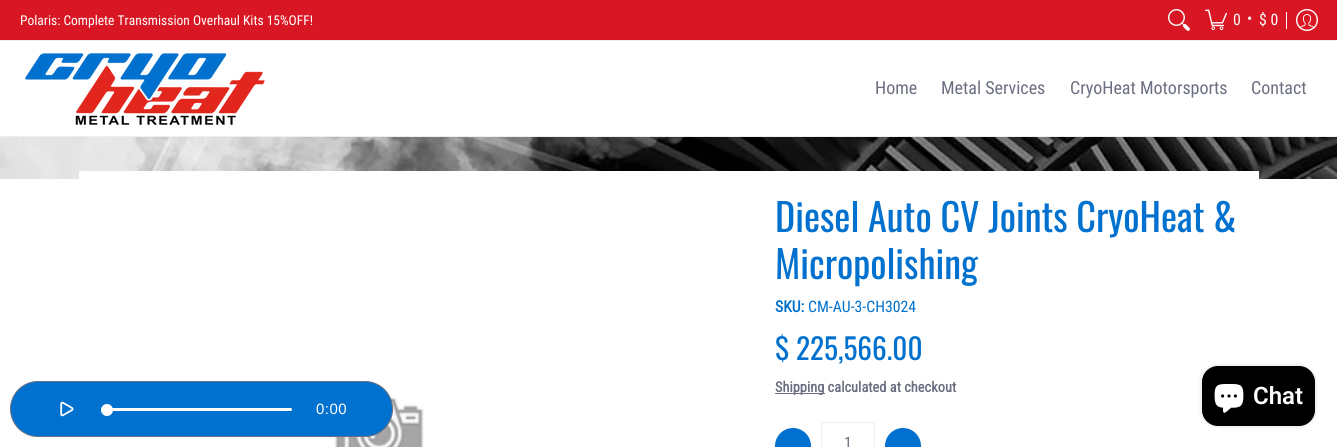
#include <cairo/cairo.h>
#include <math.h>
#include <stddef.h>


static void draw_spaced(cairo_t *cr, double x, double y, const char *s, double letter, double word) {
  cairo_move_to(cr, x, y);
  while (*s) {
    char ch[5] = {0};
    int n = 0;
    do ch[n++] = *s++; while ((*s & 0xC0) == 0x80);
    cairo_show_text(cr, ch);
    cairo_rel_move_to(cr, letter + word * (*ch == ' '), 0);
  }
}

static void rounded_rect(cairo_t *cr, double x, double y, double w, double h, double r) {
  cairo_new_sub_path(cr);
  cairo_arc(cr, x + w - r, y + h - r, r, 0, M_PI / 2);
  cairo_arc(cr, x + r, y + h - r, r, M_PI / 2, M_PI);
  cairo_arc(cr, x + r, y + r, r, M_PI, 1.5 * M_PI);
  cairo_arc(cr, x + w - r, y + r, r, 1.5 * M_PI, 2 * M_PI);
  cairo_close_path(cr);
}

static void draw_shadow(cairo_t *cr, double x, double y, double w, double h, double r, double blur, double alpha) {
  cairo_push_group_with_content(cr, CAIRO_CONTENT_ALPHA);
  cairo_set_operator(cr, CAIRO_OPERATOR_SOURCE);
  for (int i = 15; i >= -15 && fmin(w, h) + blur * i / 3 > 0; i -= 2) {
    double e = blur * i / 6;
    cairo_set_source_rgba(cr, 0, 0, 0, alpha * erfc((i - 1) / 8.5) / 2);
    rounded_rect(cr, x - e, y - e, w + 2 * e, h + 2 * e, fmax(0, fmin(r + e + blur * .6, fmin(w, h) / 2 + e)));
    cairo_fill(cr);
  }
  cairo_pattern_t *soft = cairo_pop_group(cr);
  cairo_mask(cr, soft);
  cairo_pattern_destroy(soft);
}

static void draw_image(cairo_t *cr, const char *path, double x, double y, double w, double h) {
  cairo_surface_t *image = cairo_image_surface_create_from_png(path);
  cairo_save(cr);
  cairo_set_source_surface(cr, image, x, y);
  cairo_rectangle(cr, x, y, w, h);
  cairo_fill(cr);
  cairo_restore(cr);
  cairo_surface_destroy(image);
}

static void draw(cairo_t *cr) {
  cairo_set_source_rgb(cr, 1, 1, 1);
  cairo_paint(cr);
  cairo_set_source_rgb(cr, 217 / 255.0, 23 / 255.0, 36 / 255.0);
  cairo_rectangle(cr, 0, 0, 1337, 40);
  cairo_fill(cr);
  cairo_set_source_rgb(cr, 237 / 255.0, 238 / 255.0, 244 / 255.0);
  cairo_rectangle(cr, 0, 40, 1337, 1);
  cairo_fill(cr);
  draw_image(cr, "images/1.png", 1168, 9, 22, 22);
  draw_image(cr, "images/2.png", 1205, 9, 22, 22);
  cairo_set_source_rgb(cr, 1, 1, 1);
  cairo_rectangle(cr, 1286, 12, 1, 17);
  cairo_fill(cr);
  draw_image(cr, "images/3.png", 1296, 9, 22, 22);
  cairo_set_source_rgb(cr, 237 / 255.0, 238 / 255.0, 244 / 255.0);
  cairo_rectangle(cr, 0, 136, 1337, 1);
  cairo_fill(cr);
  draw_image(cr, "images/4.png", 25, 53, 240, 72);
  draw_image(cr, "images/5.png", 0, 137, 1337, 42);
  cairo_set_source_rgb(cr, 1, 1, 1);
  cairo_rectangle(cr, 79, 171, 1180, 8);
  cairo_fill(cr);
  draw_image(cr, "images/6.png", 334, 393, 90, 54);
  cairo_set_source_rgb(cr, 107 / 255.0, 111 / 255.0, 129 / 255.0);
  cairo_rectangle(cr, 775, 393, 50, 1);
  cairo_fill(cr);
  cairo_set_source_rgb(cr, 0, 113 / 255.0, 206 / 255.0);
  cairo_arc(cr, 793, 446, 18, 0, 2 * M_PI);
  cairo_fill(cr);
  cairo_rectangle(cr, 821.5, 422.5, 53, 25);
  cairo_set_source_rgb(cr, 237 / 255.0, 238 / 255.0, 244 / 255.0);
  cairo_set_line_width(cr, 1);
  cairo_stroke(cr);
  cairo_set_source_rgb(cr, 0, 113 / 255.0, 206 / 255.0);
  cairo_arc(cr, 903, 446, 18, 0, 2 * M_PI);
  cairo_fill(cr);
  cairo_set_source_rgb(cr, 0, 0, 0);
  draw_shadow(cr, 1202, 366, 113, 60, 16, 2.5, 0.15);
  cairo_set_source_rgb(cr, 0, 0, 0);
  rounded_rect(cr, 1202, 366, 113, 60, 16);
  cairo_fill(cr);
  draw_image(cr, "images/7.png", 1214, 384, 30, 29);
  cairo_set_source_rgb(cr, 0, 113 / 255.0, 206 / 255.0);
  rounded_rect(cr, 10.5, 381.5, 382, 55, 27.5);
  cairo_fill_preserve(cr);
  cairo_set_source_rgb(cr, 107 / 255.0, 111 / 255.0, 129 / 255.0);
  cairo_stroke(cr);
  draw_image(cr, "images/8.png", 60, 401, 14, 16);
  cairo_set_source_rgb(cr, 1, 1, 1);
  rounded_rect(cr, 101, 408, 191, 3, 1.5);
  cairo_fill(cr);
  cairo_arc(cr, 107, 410, 6, 0, 2 * M_PI);
  cairo_fill(cr);
  cairo_select_font_face(cr, "Roboto Condensed", CAIRO_FONT_SLANT_NORMAL, CAIRO_FONT_WEIGHT_NORMAL);
  cairo_set_font_size(cr, 13.5);
  cairo_move_to(cr, 20, 25);
  cairo_show_text(cr, "Polaris: Complete Transmission Overhaul Kits 15%OFF!");
  cairo_set_font_size(cr, 15.75);
  cairo_move_to(cr, 1233, 25);
  cairo_show_text(cr, "0");
  cairo_move_to(cr, 1247, 24);
  cairo_show_text(cr, "•");
  cairo_move_to(cr, 1259, 25);
  cairo_show_text(cr, "$ 0");
  cairo_set_font_size(cr, 18);
  cairo_set_source_rgb(cr, 107 / 255.0, 111 / 255.0, 129 / 255.0);
  cairo_move_to(cr, 875, 94);
  cairo_show_text(cr, "Home");
  cairo_move_to(cr, 941, 94);
  cairo_show_text(cr, "Metal Services");
  cairo_move_to(cr, 1070, 94);
  cairo_show_text(cr, "CryoHeat Motorsports");
  cairo_move_to(cr, 1251, 94);
  cairo_show_text(cr, "Contact");
  cairo_select_font_face(cr, "Oswald", CAIRO_FONT_SLANT_NORMAL, CAIRO_FONT_WEIGHT_NORMAL);
  cairo_set_font_size(cr, 38.25);
  cairo_set_source_rgb(cr, 0, 113 / 255.0, 206 / 255.0);
  cairo_move_to(cr, 775, 232);
  cairo_show_text(cr, "Diesel Auto CV Joints CryoHeat &");
  cairo_move_to(cr, 775, 279);
  cairo_show_text(cr, "Micropolishing");
  cairo_select_font_face(cr, "Roboto Condensed", CAIRO_FONT_SLANT_NORMAL, CAIRO_FONT_WEIGHT_BOLD);
  cairo_set_font_size(cr, 15.75);
  cairo_move_to(cr, 775, 312);
  cairo_show_text(cr, "SKU:");
  cairo_select_font_face(cr, "Roboto Condensed", CAIRO_FONT_SLANT_NORMAL, CAIRO_FONT_WEIGHT_NORMAL);
  cairo_move_to(cr, 808, 312);
  cairo_show_text(cr, "CM-AU-3-CH3024");
  cairo_select_font_face(cr, "Oswald", CAIRO_FONT_SLANT_NORMAL, CAIRO_FONT_WEIGHT_NORMAL);
  cairo_set_font_size(cr, 29.25);
  cairo_move_to(cr, 775, 360);
  cairo_show_text(cr, "$ 225,566.00");
  cairo_select_font_face(cr, "Roboto Condensed", CAIRO_FONT_SLANT_NORMAL, CAIRO_FONT_WEIGHT_BOLD);
  cairo_set_font_size(cr, 14.4);
  cairo_set_source_rgb(cr, 107 / 255.0, 111 / 255.0, 129 / 255.0);
  cairo_move_to(cr, 775, 392);
  cairo_show_text(cr, "Shipping calculated at checkout");
  cairo_select_font_face(cr, "Roboto Condensed", CAIRO_FONT_SLANT_NORMAL, CAIRO_FONT_WEIGHT_NORMAL);
  cairo_set_font_size(cr, 15.75);
  cairo_move_to(cr, 844, 448);
  cairo_show_text(cr, "1");
  cairo_select_font_face(cr, "Roboto SemiBold", CAIRO_FONT_SLANT_NORMAL, CAIRO_FONT_WEIGHT_NORMAL);
  cairo_set_font_size(cr, 24);
  cairo_set_source_rgb(cr, 1, 1, 1);
  cairo_move_to(cr, 1253, 404);
  cairo_show_text(cr, "Chat");
  cairo_select_font_face(cr, "Liberation Sans", CAIRO_FONT_SLANT_NORMAL, CAIRO_FONT_WEIGHT_NORMAL);
  cairo_set_font_size(cr, 15);
  draw_spaced(cr, 316, 414, "0:00", 0.5, 0);
}

int main(void) {
  cairo_surface_t *surface = cairo_image_surface_create(CAIRO_FORMAT_RGB24, 1337, 447);
  cairo_t *cr = cairo_create(surface);
  cairo_font_options_t *options = cairo_font_options_create();
  cairo_font_options_set_hint_metrics(options, CAIRO_HINT_METRICS_OFF);
  cairo_font_options_set_hint_style(options, CAIRO_HINT_STYLE_NONE);
  cairo_set_font_options(cr, options);
  cairo_set_miter_limit(cr, 4);
  draw(cr);
  cairo_surface_write_to_png(surface, "out.png");
  cairo_font_options_destroy(options);
  cairo_destroy(cr);
  cairo_surface_destroy(surface);
  return 0;
}
